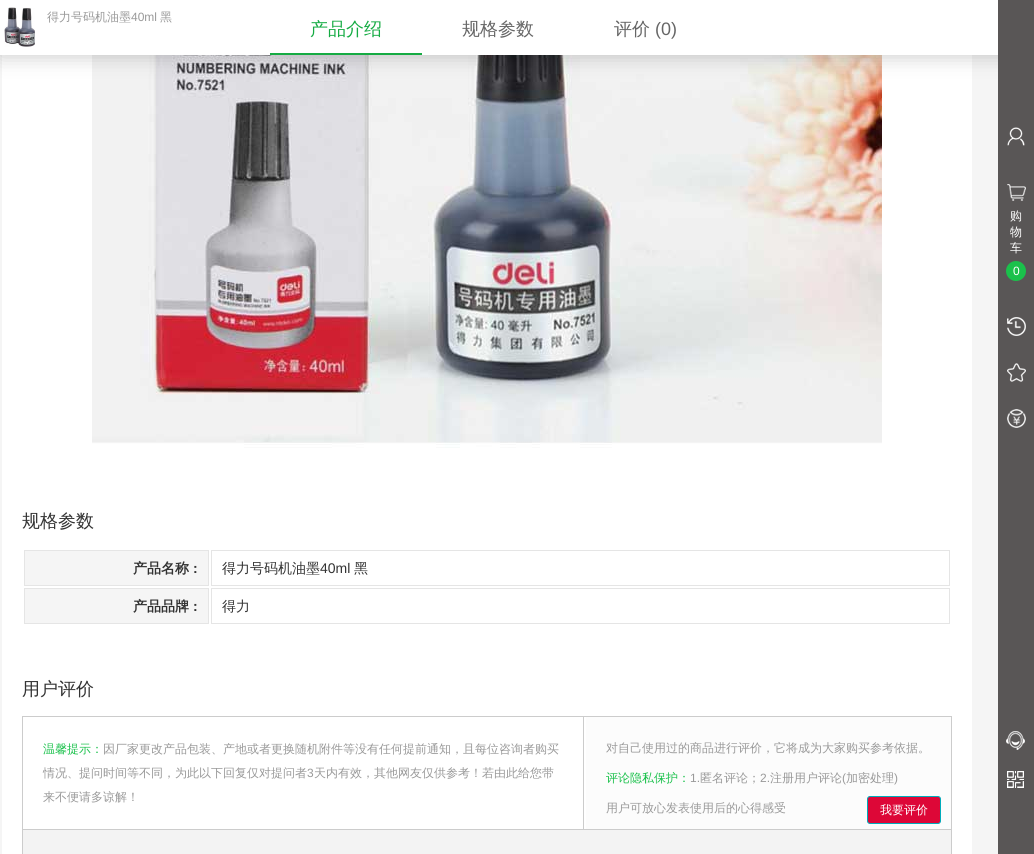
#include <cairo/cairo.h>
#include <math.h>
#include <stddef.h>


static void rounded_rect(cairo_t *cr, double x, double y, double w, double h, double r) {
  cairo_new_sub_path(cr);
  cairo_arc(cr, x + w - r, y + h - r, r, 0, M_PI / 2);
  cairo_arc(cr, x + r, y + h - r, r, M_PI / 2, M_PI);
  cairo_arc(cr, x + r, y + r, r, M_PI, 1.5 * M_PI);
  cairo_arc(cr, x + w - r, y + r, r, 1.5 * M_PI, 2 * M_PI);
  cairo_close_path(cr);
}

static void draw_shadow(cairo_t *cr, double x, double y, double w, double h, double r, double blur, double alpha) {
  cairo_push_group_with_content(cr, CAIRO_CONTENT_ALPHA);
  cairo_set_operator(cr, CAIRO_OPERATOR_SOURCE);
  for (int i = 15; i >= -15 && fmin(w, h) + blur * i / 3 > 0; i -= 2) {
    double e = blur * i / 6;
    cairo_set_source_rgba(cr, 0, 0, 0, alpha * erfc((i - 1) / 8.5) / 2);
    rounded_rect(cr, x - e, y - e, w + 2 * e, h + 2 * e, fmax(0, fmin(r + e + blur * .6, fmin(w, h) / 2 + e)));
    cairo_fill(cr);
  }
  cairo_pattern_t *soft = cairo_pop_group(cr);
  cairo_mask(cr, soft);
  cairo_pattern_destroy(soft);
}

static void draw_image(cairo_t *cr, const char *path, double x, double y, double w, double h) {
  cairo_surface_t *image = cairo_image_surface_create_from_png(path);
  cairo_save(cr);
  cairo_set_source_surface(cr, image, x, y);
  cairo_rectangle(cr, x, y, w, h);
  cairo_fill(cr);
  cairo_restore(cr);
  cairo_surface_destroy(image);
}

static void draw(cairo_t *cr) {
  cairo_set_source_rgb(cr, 245 / 255.0, 245 / 255.0, 245 / 255.0);
  cairo_paint(cr);
  cairo_set_source_rgb(cr, 1, 1, 1);
  cairo_rectangle(cr, 2, 55, 970, 799);
  cairo_fill(cr);
  draw_image(cr, "images/9.png", 92, 55, 790, 393);
  cairo_set_source_rgb(cr, 0, 0, 0);
  draw_shadow(cr, 0, 2, 1034, 55, 0, 10, 0.2);
  cairo_set_source_rgb(cr, 1, 1, 1);
  cairo_rectangle(cr, 0, 0, 998, 55);
  cairo_fill(cr);
  draw_image(cr, "images/1.png", 4, 7, 31, 40);
  cairo_set_source_rgb(cr, 21 / 255.0, 171 / 255.0, 67 / 255.0);
  cairo_rectangle(cr, 270, 53, 152, 2);
  cairo_fill(cr);
  cairo_set_source_rgb(cr, 89 / 255.0, 86 / 255.0, 86 / 255.0);
  cairo_rectangle(cr, 998, 0, 36, 854);
  cairo_fill(cr);
  draw_image(cr, "images/2.png", 1007, 127, 18, 19);
  draw_image(cr, "images/3.png", 1007, 184, 19, 17);
  cairo_set_source_rgb(cr, 26 / 255.0, 193 / 255.0, 75 / 255.0);
  cairo_arc(cr, 1016, 271, 10, 0, 2 * M_PI);
  cairo_fill(cr);
  draw_image(cr, "images/4.png", 1007, 317, 19, 19);
  draw_image(cr, "images/5.png", 1007, 363, 19, 19);
  draw_image(cr, "images/6.png", 1007, 409, 19, 19);
  draw_image(cr, "images/7.png", 1006, 731, 19, 19);
  draw_image(cr, "images/8.png", 1007, 771, 17, 17);
  cairo_set_source_rgb(cr, 245 / 255.0, 245 / 255.0, 245 / 255.0);
  cairo_rectangle(cr, 24.5, 550.5, 184, 35);
  cairo_fill_preserve(cr);
  cairo_set_source_rgb(cr, 229 / 255.0, 229 / 255.0, 229 / 255.0);
  cairo_set_line_width(cr, 1);
  cairo_stroke(cr);
  cairo_rectangle(cr, 211.5, 550.5, 738, 35);
  cairo_stroke(cr);
  cairo_set_source_rgb(cr, 245 / 255.0, 245 / 255.0, 245 / 255.0);
  cairo_rectangle(cr, 24.5, 588.5, 184, 35);
  cairo_fill_preserve(cr);
  cairo_set_source_rgb(cr, 229 / 255.0, 229 / 255.0, 229 / 255.0);
  cairo_stroke(cr);
  cairo_rectangle(cr, 211.5, 588.5, 738, 35);
  cairo_stroke(cr);
  cairo_rectangle(cr, 22.5, 716.5, 929, 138);
  cairo_set_source_rgb(cr, 204 / 255.0, 204 / 255.0, 204 / 255.0);
  cairo_stroke(cr);
  cairo_rectangle(cr, 23, 829, 928, 1);
  cairo_fill(cr);
  cairo_rectangle(cr, 583, 717, 1, 112);
  cairo_fill(cr);
  cairo_set_source_rgb(cr, 252 / 255.0, 252 / 255.0, 252 / 255.0);
  cairo_rectangle(cr, 586, 717, 365, 112);
  cairo_fill(cr);
  cairo_set_source_rgb(cr, 221 / 255.0, 7 / 255.0, 55 / 255.0);
  rounded_rect(cr, 867.5, 796.5, 73, 27, 2.5);
  cairo_fill_preserve(cr);
  cairo_set_source_rgb(cr, 0, 172 / 255.0, 188 / 255.0);
  cairo_stroke(cr);
  cairo_set_source_rgb(cr, 243 / 255.0, 243 / 255.0, 243 / 255.0);
  cairo_rectangle(cr, 23, 830, 928, 24);
  cairo_fill(cr);
  cairo_select_font_face(cr, "WenQuanYi Zen Hei Medium", CAIRO_FONT_SLANT_NORMAL, CAIRO_FONT_WEIGHT_NORMAL);
  cairo_set_font_size(cr, 12);
  cairo_set_source_rgb(cr, 153 / 255.0, 153 / 255.0, 153 / 255.0);
  cairo_move_to(cr, 47, 21);
  cairo_show_text(cr, "得力号码机油墨");
  cairo_select_font_face(cr, "Liberation Sans", CAIRO_FONT_SLANT_NORMAL, CAIRO_FONT_WEIGHT_NORMAL);
  cairo_move_to(cr, 131, 21);
  cairo_show_text(cr, "40ml");
  cairo_select_font_face(cr, "WenQuanYi Zen Hei Medium", CAIRO_FONT_SLANT_NORMAL, CAIRO_FONT_WEIGHT_NORMAL);
  cairo_move_to(cr, 160, 21);
  cairo_show_text(cr, "黑");
  cairo_set_font_size(cr, 18);
  cairo_set_source_rgb(cr, 21 / 255.0, 171 / 255.0, 67 / 255.0);
  cairo_move_to(cr, 310, 35);
  cairo_show_text(cr, "产品介绍");
  cairo_set_source_rgb(cr, 102 / 255.0, 102 / 255.0, 102 / 255.0);
  cairo_move_to(cr, 462, 35);
  cairo_show_text(cr, "规格参数");
  cairo_move_to(cr, 614, 35);
  cairo_show_text(cr, "评价");
  cairo_select_font_face(cr, "Liberation Sans", CAIRO_FONT_SLANT_NORMAL, CAIRO_FONT_WEIGHT_NORMAL);
  cairo_move_to(cr, 655, 35);
  cairo_show_text(cr, "(0)");
  cairo_select_font_face(cr, "WenQuanYi Zen Hei Medium", CAIRO_FONT_SLANT_NORMAL, CAIRO_FONT_WEIGHT_NORMAL);
  cairo_set_font_size(cr, 12);
  cairo_set_source_rgb(cr, 1, 1, 1);
  cairo_move_to(cr, 1010, 220);
  cairo_show_text(cr, "购");
  cairo_move_to(cr, 1010, 236);
  cairo_show_text(cr, "物");
  cairo_move_to(cr, 1010, 252);
  cairo_show_text(cr, "车");
  cairo_select_font_face(cr, "Liberation Sans", CAIRO_FONT_SLANT_NORMAL, CAIRO_FONT_WEIGHT_NORMAL);
  cairo_move_to(cr, 1013, 275);
  cairo_show_text(cr, "0");
  cairo_select_font_face(cr, "WenQuanYi Zen Hei Medium", CAIRO_FONT_SLANT_NORMAL, CAIRO_FONT_WEIGHT_NORMAL);
  cairo_set_font_size(cr, 18);
  cairo_set_source_rgb(cr, 51 / 255.0, 51 / 255.0, 51 / 255.0);
  cairo_move_to(cr, 22, 527);
  cairo_show_text(cr, "规格参数");
  cairo_select_font_face(cr, "WenQuanYi Zen Hei", CAIRO_FONT_SLANT_NORMAL, CAIRO_FONT_WEIGHT_BOLD);
  cairo_set_font_size(cr, 14);
  cairo_move_to(cr, 133, 573);
  cairo_show_text(cr, "产品名称");
  cairo_select_font_face(cr, "Liberation Sans", CAIRO_FONT_SLANT_NORMAL, CAIRO_FONT_WEIGHT_BOLD);
  cairo_move_to(cr, 193, 573);
  cairo_show_text(cr, ":");
  cairo_select_font_face(cr, "WenQuanYi Zen Hei Medium", CAIRO_FONT_SLANT_NORMAL, CAIRO_FONT_WEIGHT_NORMAL);
  cairo_move_to(cr, 222, 573);
  cairo_show_text(cr, "得力号码机油墨");
  cairo_select_font_face(cr, "Liberation Sans", CAIRO_FONT_SLANT_NORMAL, CAIRO_FONT_WEIGHT_NORMAL);
  cairo_move_to(cr, 320, 573);
  cairo_show_text(cr, "40ml");
  cairo_select_font_face(cr, "WenQuanYi Zen Hei Medium", CAIRO_FONT_SLANT_NORMAL, CAIRO_FONT_WEIGHT_NORMAL);
  cairo_move_to(cr, 354, 573);
  cairo_show_text(cr, "黑");
  cairo_select_font_face(cr, "WenQuanYi Zen Hei", CAIRO_FONT_SLANT_NORMAL, CAIRO_FONT_WEIGHT_BOLD);
  cairo_move_to(cr, 133, 611);
  cairo_show_text(cr, "产品品牌");
  cairo_select_font_face(cr, "Liberation Sans", CAIRO_FONT_SLANT_NORMAL, CAIRO_FONT_WEIGHT_BOLD);
  cairo_move_to(cr, 193, 611);
  cairo_show_text(cr, ":");
  cairo_select_font_face(cr, "WenQuanYi Zen Hei Medium", CAIRO_FONT_SLANT_NORMAL, CAIRO_FONT_WEIGHT_NORMAL);
  cairo_move_to(cr, 222, 611);
  cairo_show_text(cr, "得力");
  cairo_set_font_size(cr, 18);
  cairo_move_to(cr, 22, 695);
  cairo_show_text(cr, "用户评价");
  cairo_set_font_size(cr, 12);
  cairo_set_source_rgb(cr, 26 / 255.0, 193 / 255.0, 75 / 255.0);
  cairo_move_to(cr, 43, 753);
  cairo_show_text(cr, "温馨提示：");
  cairo_set_source_rgb(cr, 153 / 255.0, 153 / 255.0, 153 / 255.0);
  cairo_move_to(cr, 103, 753);
  cairo_show_text(cr, "因厂家更改产品包装、产地或者更换随机附件等没有任何提前通知，且每位咨询者购买");
  cairo_move_to(cr, 43, 777);
  cairo_show_text(cr, "情况、提问时间等不同，为此以下回复仅对提问者");
  cairo_select_font_face(cr, "Liberation Sans", CAIRO_FONT_SLANT_NORMAL, CAIRO_FONT_WEIGHT_NORMAL);
  cairo_move_to(cr, 307, 777);
  cairo_show_text(cr, "3");
  cairo_select_font_face(cr, "WenQuanYi Zen Hei Medium", CAIRO_FONT_SLANT_NORMAL, CAIRO_FONT_WEIGHT_NORMAL);
  cairo_move_to(cr, 314, 777);
  cairo_show_text(cr, "天内有效，其他网友仅供参考！若由此给您带");
  cairo_move_to(cr, 43, 801);
  cairo_show_text(cr, "来不便请多谅解！");
  cairo_move_to(cr, 606, 752);
  cairo_show_text(cr, "对自己使用过的商品进行评价，它将成为大家购买参考依据。");
  cairo_set_source_rgb(cr, 26 / 255.0, 193 / 255.0, 75 / 255.0);
  cairo_move_to(cr, 606, 782);
  cairo_show_text(cr, "评论隐私保护：");
  cairo_select_font_face(cr, "Liberation Sans", CAIRO_FONT_SLANT_NORMAL, CAIRO_FONT_WEIGHT_NORMAL);
  cairo_set_source_rgb(cr, 153 / 255.0, 153 / 255.0, 153 / 255.0);
  cairo_move_to(cr, 690, 782);
  cairo_show_text(cr, "1.");
  cairo_select_font_face(cr, "WenQuanYi Zen Hei Medium", CAIRO_FONT_SLANT_NORMAL, CAIRO_FONT_WEIGHT_NORMAL);
  cairo_move_to(cr, 700, 782);
  cairo_show_text(cr, "匿名评论；");
  cairo_select_font_face(cr, "Liberation Sans", CAIRO_FONT_SLANT_NORMAL, CAIRO_FONT_WEIGHT_NORMAL);
  cairo_move_to(cr, 760, 782);
  cairo_show_text(cr, "2.");
  cairo_select_font_face(cr, "WenQuanYi Zen Hei Medium", CAIRO_FONT_SLANT_NORMAL, CAIRO_FONT_WEIGHT_NORMAL);
  cairo_move_to(cr, 770, 782);
  cairo_show_text(cr, "注册用户评论");
  cairo_select_font_face(cr, "Liberation Sans", CAIRO_FONT_SLANT_NORMAL, CAIRO_FONT_WEIGHT_NORMAL);
  cairo_move_to(cr, 842, 782);
  cairo_show_text(cr, "(");
  cairo_select_font_face(cr, "WenQuanYi Zen Hei Medium", CAIRO_FONT_SLANT_NORMAL, CAIRO_FONT_WEIGHT_NORMAL);
  cairo_move_to(cr, 846, 782);
  cairo_show_text(cr, "加密处理");
  cairo_select_font_face(cr, "Liberation Sans", CAIRO_FONT_SLANT_NORMAL, CAIRO_FONT_WEIGHT_NORMAL);
  cairo_move_to(cr, 894, 782);
  cairo_show_text(cr, ")");
  cairo_select_font_face(cr, "WenQuanYi Zen Hei Medium", CAIRO_FONT_SLANT_NORMAL, CAIRO_FONT_WEIGHT_NORMAL);
  cairo_move_to(cr, 606, 812);
  cairo_show_text(cr, "用户可放心发表使用后的心得感受");
  cairo_set_source_rgb(cr, 1, 1, 1);
  cairo_move_to(cr, 880, 814);
  cairo_show_text(cr, "我要评价");
}

int main(void) {
  cairo_surface_t *surface = cairo_image_surface_create(CAIRO_FORMAT_RGB24, 1034, 854);
  cairo_t *cr = cairo_create(surface);
  cairo_font_options_t *options = cairo_font_options_create();
  cairo_font_options_set_hint_metrics(options, CAIRO_HINT_METRICS_OFF);
  cairo_font_options_set_hint_style(options, CAIRO_HINT_STYLE_NONE);
  cairo_set_font_options(cr, options);
  cairo_set_miter_limit(cr, 4);
  draw(cr);
  cairo_surface_write_to_png(surface, "out.png");
  cairo_font_options_destroy(options);
  cairo_destroy(cr);
  cairo_surface_destroy(surface);
  return 0;
}
